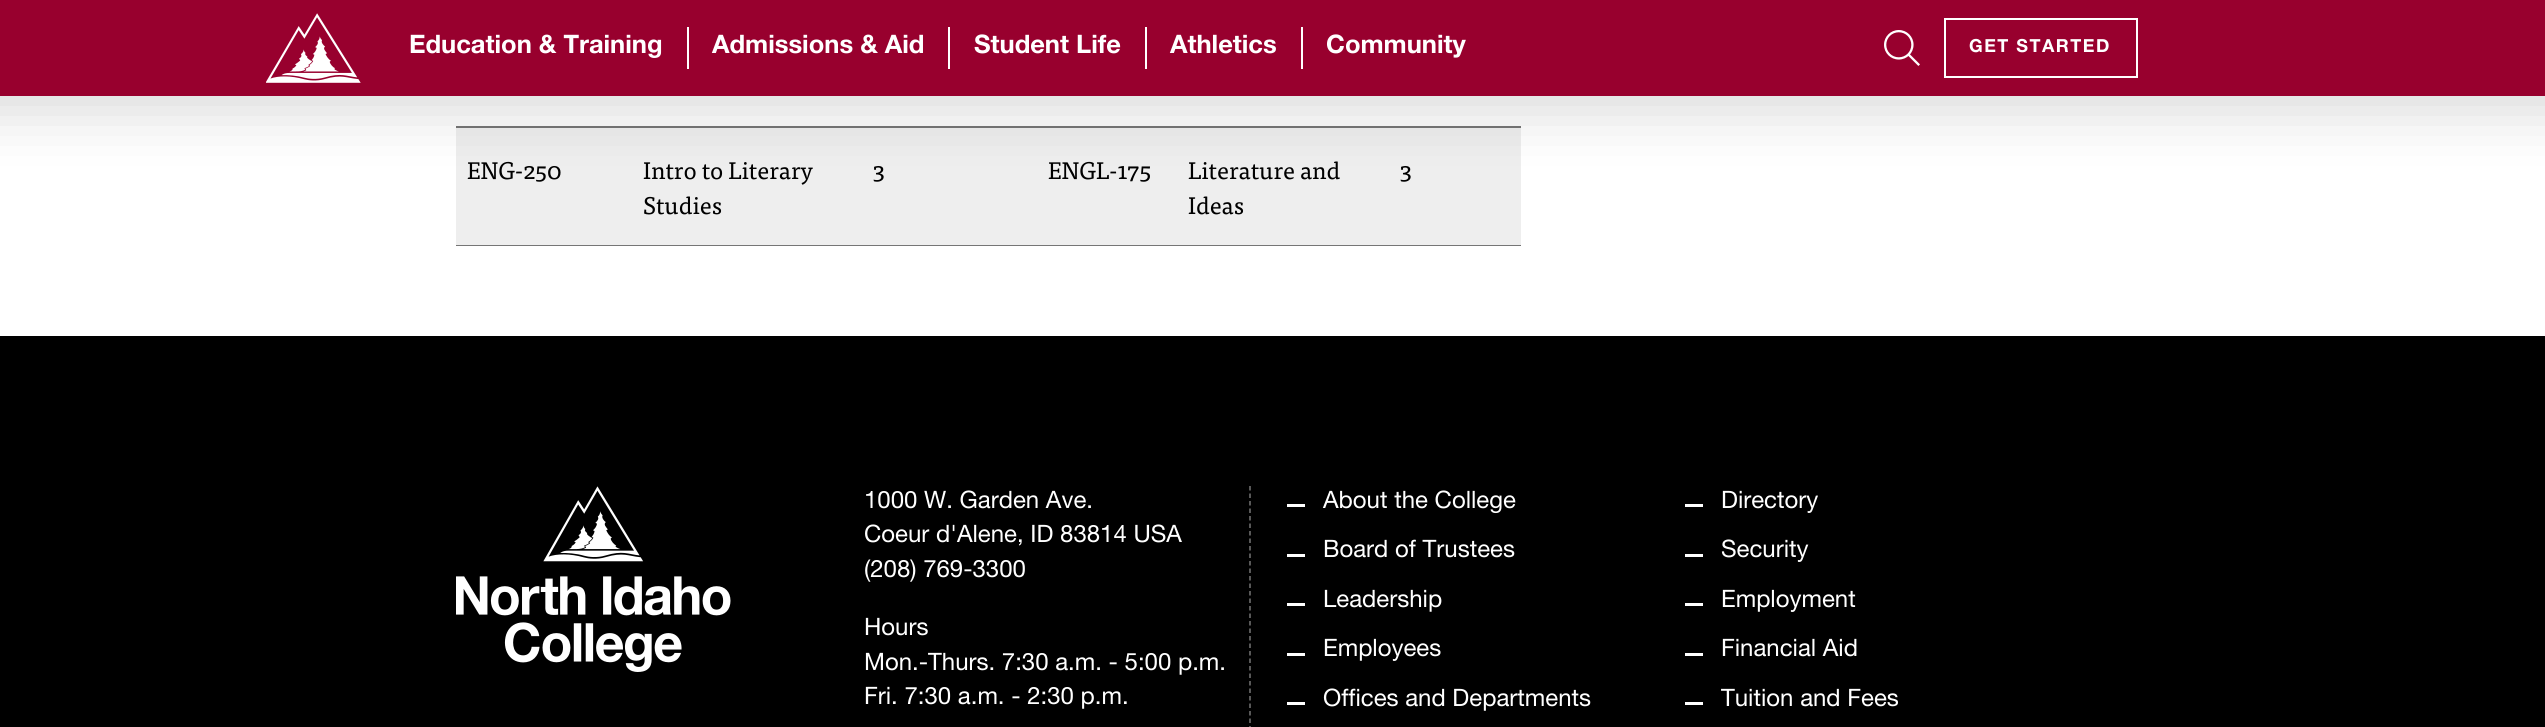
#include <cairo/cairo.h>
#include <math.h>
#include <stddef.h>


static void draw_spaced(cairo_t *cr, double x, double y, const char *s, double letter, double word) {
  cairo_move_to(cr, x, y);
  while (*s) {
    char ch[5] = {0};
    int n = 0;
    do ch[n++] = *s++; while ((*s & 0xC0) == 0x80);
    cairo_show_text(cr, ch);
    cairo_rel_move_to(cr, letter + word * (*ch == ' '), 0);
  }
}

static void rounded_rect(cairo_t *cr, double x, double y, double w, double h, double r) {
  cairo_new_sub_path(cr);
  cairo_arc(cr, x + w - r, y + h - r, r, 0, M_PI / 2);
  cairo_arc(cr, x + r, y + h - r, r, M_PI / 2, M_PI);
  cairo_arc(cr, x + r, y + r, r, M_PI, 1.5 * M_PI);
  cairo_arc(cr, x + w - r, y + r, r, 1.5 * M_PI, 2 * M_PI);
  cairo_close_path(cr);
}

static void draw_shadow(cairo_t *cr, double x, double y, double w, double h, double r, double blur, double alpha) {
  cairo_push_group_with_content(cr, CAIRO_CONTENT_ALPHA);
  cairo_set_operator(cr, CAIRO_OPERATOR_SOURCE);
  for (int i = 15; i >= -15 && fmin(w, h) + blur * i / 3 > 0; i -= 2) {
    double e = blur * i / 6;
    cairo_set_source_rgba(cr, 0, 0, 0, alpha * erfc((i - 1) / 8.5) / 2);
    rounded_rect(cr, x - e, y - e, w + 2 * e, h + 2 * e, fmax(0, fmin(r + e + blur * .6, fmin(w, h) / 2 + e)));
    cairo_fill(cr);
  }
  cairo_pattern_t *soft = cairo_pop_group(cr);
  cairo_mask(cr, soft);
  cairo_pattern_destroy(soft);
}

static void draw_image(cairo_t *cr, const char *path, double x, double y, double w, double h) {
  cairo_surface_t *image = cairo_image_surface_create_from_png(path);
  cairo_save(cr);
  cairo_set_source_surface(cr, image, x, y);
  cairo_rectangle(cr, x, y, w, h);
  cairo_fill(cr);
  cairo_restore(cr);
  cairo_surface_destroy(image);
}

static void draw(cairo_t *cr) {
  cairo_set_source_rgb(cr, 1, 1, 1);
  cairo_paint(cr);
  cairo_set_source_rgb(cr, 117 / 255.0, 117 / 255.0, 117 / 255.0);
  cairo_rectangle(cr, 456, 126, 1065, 2);
  cairo_fill(cr);
  cairo_set_source_rgb(cr, 238 / 255.0, 238 / 255.0, 238 / 255.0);
  cairo_rectangle(cr, 456, 128, 1065, 117);
  cairo_fill(cr);
  cairo_set_source_rgb(cr, 0, 0, 0);
  draw_shadow(cr, -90, -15, 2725, 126, 0, 30, 0.15);
  cairo_set_source_rgb(cr, 152 / 255.0, 0, 46 / 255.0);
  cairo_rectangle(cr, 0, 0, 2545, 96);
  cairo_fill(cr);
  draw_image(cr, "images/1.png", 266, 13, 95, 70);
  cairo_set_source_rgb(cr, 1, 1, 1);
  cairo_rectangle(cr, 687, 27, 2, 42);
  cairo_fill(cr);
  cairo_rectangle(cr, 948, 27, 2, 42);
  cairo_fill(cr);
  cairo_rectangle(cr, 1145, 27, 2, 42);
  cairo_fill(cr);
  cairo_rectangle(cr, 1301, 27, 2, 42);
  cairo_fill(cr);
  draw_image(cr, "images/2.png", 1884, 30, 36, 36);
  cairo_rectangle(cr, 1945, 19, 192, 58);
  cairo_stroke(cr);
  cairo_set_source_rgb(cr, 117 / 255.0, 117 / 255.0, 117 / 255.0);
  cairo_rectangle(cr, 456, 245, 1065, 1);
  cairo_fill(cr);
  cairo_set_source_rgb(cr, 0, 0, 0);
  cairo_rectangle(cr, 0, 336, 2545, 391);
  cairo_fill(cr);
  draw_image(cr, "images/3.png", 456, 486, 275, 186);
  cairo_new_path(cr);
  cairo_move_to(cr, 1250, 486);
  cairo_line_to(cr, 1250, 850.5);
  cairo_set_source_rgb(cr, 117 / 255.0, 117 / 255.0, 117 / 255.0);
  cairo_set_line_width(cr, 1.5);
  cairo_set_dash(cr, (double[]){4.5, 3}, 2, 0);
  cairo_stroke(cr);
  cairo_set_source_rgb(cr, 1, 1, 1);
  cairo_rectangle(cr, 1287, 504, 18, 3);
  cairo_fill(cr);
  cairo_rectangle(cr, 1287, 554, 18, 3);
  cairo_fill(cr);
  cairo_rectangle(cr, 1287, 603, 18, 3);
  cairo_fill(cr);
  cairo_rectangle(cr, 1287, 653, 18, 3);
  cairo_fill(cr);
  cairo_rectangle(cr, 1287, 702, 18, 3);
  cairo_fill(cr);
  cairo_rectangle(cr, 1685, 504, 18, 3);
  cairo_fill(cr);
  cairo_rectangle(cr, 1685, 554, 18, 3);
  cairo_fill(cr);
  cairo_rectangle(cr, 1685, 603, 18, 3);
  cairo_fill(cr);
  cairo_rectangle(cr, 1685, 653, 18, 3);
  cairo_fill(cr);
  cairo_rectangle(cr, 1685, 702, 18, 3);
  cairo_fill(cr);
  cairo_select_font_face(cr, "Helvetica Neue", CAIRO_FONT_SLANT_NORMAL, CAIRO_FONT_WEIGHT_BOLD);
  cairo_set_font_size(cr, 25.5);
  cairo_move_to(cr, 409, 53);
  cairo_show_text(cr, "Education & Training");
  cairo_move_to(cr, 712, 53);
  cairo_show_text(cr, "Admissions & Aid");
  cairo_move_to(cr, 974, 53);
  cairo_show_text(cr, "Student Life");
  cairo_move_to(cr, 1170, 53);
  cairo_show_text(cr, "Athletics");
  cairo_move_to(cr, 1326, 53);
  cairo_show_text(cr, "Community");
  cairo_set_font_size(cr, 18);
  draw_spaced(cr, 1969, 52, "GET STARTED", 1.5, 0);
  cairo_select_font_face(cr, "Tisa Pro", CAIRO_FONT_SLANT_NORMAL, CAIRO_FONT_WEIGHT_NORMAL);
  cairo_set_font_size(cr, 24);
  cairo_set_source_rgb(cr, 0, 0, 0);
  cairo_move_to(cr, 467, 179);
  cairo_show_text(cr, "ENG-250");
  cairo_move_to(cr, 643, 179);
  cairo_show_text(cr, "Intro to Literary");
  cairo_move_to(cr, 643, 214);
  cairo_show_text(cr, "Studies");
  cairo_move_to(cr, 873, 179);
  cairo_show_text(cr, "3");
  cairo_move_to(cr, 1048, 179);
  cairo_show_text(cr, "ENGL-175");
  cairo_move_to(cr, 1188, 179);
  cairo_show_text(cr, "Literature and");
  cairo_move_to(cr, 1188, 214);
  cairo_show_text(cr, "Ideas");
  cairo_move_to(cr, 1400, 179);
  cairo_show_text(cr, "3");
  cairo_select_font_face(cr, "Helvetica Neue", CAIRO_FONT_SLANT_NORMAL, CAIRO_FONT_WEIGHT_NORMAL);
  cairo_set_source_rgb(cr, 1, 1, 1);
  cairo_move_to(cr, 864, 508);
  cairo_show_text(cr, "1000 W. Garden Ave.");
  cairo_move_to(cr, 864, 542);
  cairo_show_text(cr, "Coeur d'Alene, ID 83814 USA");
  cairo_move_to(cr, 864, 577);
  cairo_show_text(cr, "(208) 769-3300");
  cairo_move_to(cr, 864, 635);
  cairo_show_text(cr, "Hours");
  cairo_move_to(cr, 864, 670);
  cairo_show_text(cr, "Mon.-Thurs. 7:30 a.m. - 5:00 p.m.");
  cairo_move_to(cr, 864, 704);
  cairo_show_text(cr, "Fri. 7:30 a.m. - 2:30 p.m.");
  cairo_move_to(cr, 1323, 508);
  cairo_show_text(cr, "About the College");
  cairo_move_to(cr, 1323, 557);
  cairo_show_text(cr, "Board of Trustees");
  cairo_move_to(cr, 1323, 607);
  cairo_show_text(cr, "Leadership");
  cairo_move_to(cr, 1323, 656);
  cairo_show_text(cr, "Employees");
  cairo_move_to(cr, 1323, 706);
  cairo_show_text(cr, "Offices and Departments");
  cairo_move_to(cr, 1721, 508);
  cairo_show_text(cr, "Directory");
  cairo_move_to(cr, 1721, 557);
  cairo_show_text(cr, "Security");
  cairo_move_to(cr, 1721, 607);
  cairo_show_text(cr, "Employment");
  cairo_move_to(cr, 1721, 656);
  cairo_show_text(cr, "Financial Aid");
  cairo_move_to(cr, 1721, 706);
  cairo_show_text(cr, "Tuition and Fees");
}

int main(void) {
  cairo_surface_t *surface = cairo_image_surface_create(CAIRO_FORMAT_RGB24, 2545, 727);
  cairo_t *cr = cairo_create(surface);
  cairo_font_options_t *options = cairo_font_options_create();
  cairo_font_options_set_hint_metrics(options, CAIRO_HINT_METRICS_OFF);
  cairo_font_options_set_hint_style(options, CAIRO_HINT_STYLE_NONE);
  cairo_set_font_options(cr, options);
  cairo_set_miter_limit(cr, 4);
  draw(cr);
  cairo_surface_write_to_png(surface, "out.png");
  cairo_font_options_destroy(options);
  cairo_destroy(cr);
  cairo_surface_destroy(surface);
  return 0;
}
